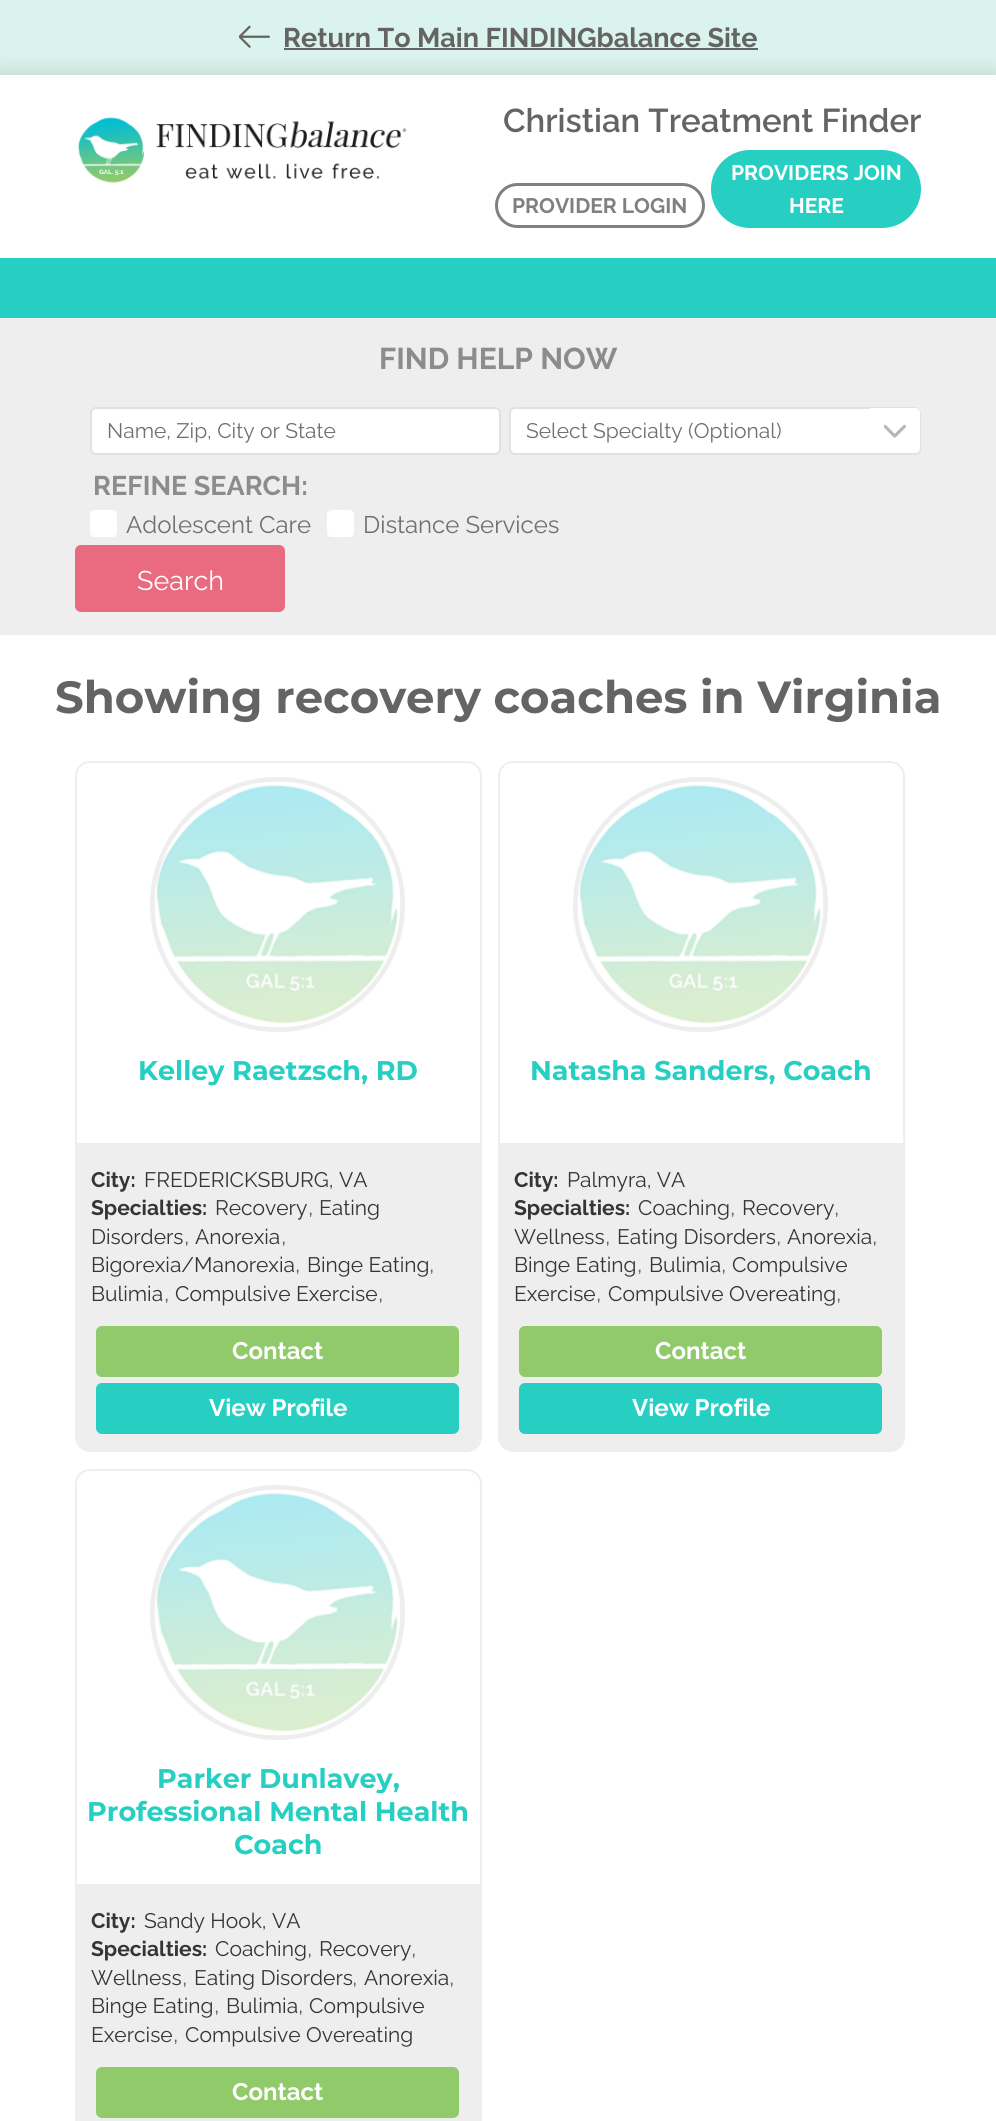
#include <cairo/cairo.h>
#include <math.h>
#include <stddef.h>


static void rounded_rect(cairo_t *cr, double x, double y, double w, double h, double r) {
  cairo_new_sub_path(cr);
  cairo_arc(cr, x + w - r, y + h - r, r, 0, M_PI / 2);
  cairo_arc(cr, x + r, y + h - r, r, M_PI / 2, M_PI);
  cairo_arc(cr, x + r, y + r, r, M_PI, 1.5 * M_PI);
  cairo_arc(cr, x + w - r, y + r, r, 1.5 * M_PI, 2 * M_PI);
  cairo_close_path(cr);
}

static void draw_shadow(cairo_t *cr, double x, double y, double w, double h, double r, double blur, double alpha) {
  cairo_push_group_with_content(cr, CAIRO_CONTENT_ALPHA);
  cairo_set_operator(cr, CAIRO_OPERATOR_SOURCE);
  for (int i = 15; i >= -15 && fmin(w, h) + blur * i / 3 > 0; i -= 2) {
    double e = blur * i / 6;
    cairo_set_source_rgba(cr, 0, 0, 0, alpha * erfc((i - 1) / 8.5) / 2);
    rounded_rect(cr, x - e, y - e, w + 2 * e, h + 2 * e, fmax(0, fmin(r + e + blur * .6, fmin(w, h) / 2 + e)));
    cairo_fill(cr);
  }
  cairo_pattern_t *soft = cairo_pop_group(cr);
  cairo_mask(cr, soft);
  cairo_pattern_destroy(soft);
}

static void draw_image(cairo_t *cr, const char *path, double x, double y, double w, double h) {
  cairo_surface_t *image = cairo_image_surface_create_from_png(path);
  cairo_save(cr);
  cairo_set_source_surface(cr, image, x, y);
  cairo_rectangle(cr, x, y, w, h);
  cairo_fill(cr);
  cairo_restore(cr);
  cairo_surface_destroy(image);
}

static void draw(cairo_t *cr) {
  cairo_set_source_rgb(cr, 219 / 255.0, 243 / 255.0, 237 / 255.0);
  cairo_paint(cr);
  draw_image(cr, "images/1.png", 239, 25, 31, 23);
  cairo_set_source_rgb(cr, 100 / 255.0, 100 / 255.0, 100 / 255.0);
  cairo_rectangle(cr, 284, 48, 474, 2);
  cairo_fill(cr);
  cairo_set_source_rgb(cr, 0, 0, 0);
  draw_shadow(cr, 0, 75, 996, 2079, 0, 11, 0.15);
  cairo_set_source_rgb(cr, 1, 1, 1);
  cairo_rectangle(cr, 0, 75, 996, 2046);
  cairo_fill(cr);
  draw_image(cr, "images/2.png", 78, 117, 329, 66);
  rounded_rect(cr, 496.5, 184.5, 207, 42, 21);
  cairo_set_source_rgb(cr, 128 / 255.0, 128 / 255.0, 128 / 255.0);
  cairo_set_line_width(cr, 3);
  cairo_stroke(cr);
  cairo_set_source_rgb(cr, 39 / 255.0, 207 / 255.0, 195 / 255.0);
  rounded_rect(cr, 711, 150, 210, 78, 39);
  cairo_fill(cr);
  cairo_rectangle(cr, 0, 258, 996, 60);
  cairo_fill(cr);
  cairo_set_source_rgb(cr, 238 / 255.0, 238 / 255.0, 238 / 255.0);
  cairo_rectangle(cr, 0, 318, 996, 317);
  cairo_fill(cr);
  cairo_set_source_rgb(cr, 1, 1, 1);
  rounded_rect(cr, 91, 408, 409, 46, 5);
  cairo_fill_preserve(cr);
  cairo_set_source_rgb(cr, 225 / 255.0, 225 / 255.0, 225 / 255.0);
  cairo_set_line_width(cr, 2);
  cairo_stroke(cr);
  cairo_set_source_rgb(cr, 1, 1, 1);
  rounded_rect(cr, 510, 408, 410, 46, 5);
  cairo_fill_preserve(cr);
  cairo_set_source_rgb(cr, 225 / 255.0, 225 / 255.0, 225 / 255.0);
  cairo_stroke(cr);
  cairo_set_source_rgb(cr, 1, 1, 1);
  cairo_new_path(cr);
  cairo_move_to(cr, 870, 408);
  cairo_line_to(cr, 915, 408);
  cairo_curve_to(cr, 918, 408, 920, 410, 920, 413);
  cairo_line_to(cr, 920, 448);
  cairo_curve_to(cr, 920, 451, 918, 453, 915, 453);
  cairo_line_to(cr, 870, 453);
  cairo_close_path(cr);
  cairo_fill(cr);
  draw_image(cr, "images/3.png", 884, 424, 22, 14);
  draw_image(cr, "images/4.png", 90, 510, 27, 27);
  draw_image(cr, "images/5.png", 327, 510, 27, 27);
  cairo_set_source_rgb(cr, 234 / 255.0, 107 / 255.0, 127 / 255.0);
  rounded_rect(cr, 76, 546, 208, 65, 5);
  cairo_fill_preserve(cr);
  cairo_stroke(cr);
  rounded_rect(cr, 76, 762, 405, 689, 14);
  cairo_set_source_rgb(cr, 238 / 255.0, 238 / 255.0, 238 / 255.0);
  cairo_stroke(cr);
  cairo_arc(cr, 277.5, 904.5, 125, 0, 2 * M_PI);
  cairo_set_line_width(cr, 5);
  cairo_stroke(cr);
  draw_image(cr, "images/6.png", 154, 781, 247, 247);
  cairo_new_path(cr);
  cairo_move_to(cr, 77, 1143);
  cairo_line_to(cr, 480, 1143);
  cairo_line_to(cr, 480, 1437);
  cairo_curve_to(cr, 480, 1444.5, 473.5, 1451, 466, 1451);
  cairo_line_to(cr, 91, 1451);
  cairo_curve_to(cr, 83.5, 1451, 77, 1444.5, 77, 1437);
  cairo_close_path(cr);
  cairo_fill(cr);
  cairo_set_source_rgb(cr, 144 / 255.0, 202 / 255.0, 106 / 255.0);
  rounded_rect(cr, 96, 1326, 363, 51, 6);
  cairo_fill(cr);
  cairo_set_source_rgb(cr, 39 / 255.0, 207 / 255.0, 195 / 255.0);
  rounded_rect(cr, 96, 1383, 363, 51, 6);
  cairo_fill(cr);
  rounded_rect(cr, 499, 762, 405, 689, 14);
  cairo_set_source_rgb(cr, 238 / 255.0, 238 / 255.0, 238 / 255.0);
  cairo_set_line_width(cr, 2);
  cairo_stroke(cr);
  cairo_arc(cr, 700.5, 904.5, 125, 0, 2 * M_PI);
  cairo_set_line_width(cr, 5);
  cairo_stroke(cr);
  draw_image(cr, "images/7.png", 577, 781, 247, 247);
  cairo_new_path(cr);
  cairo_move_to(cr, 500, 1143);
  cairo_line_to(cr, 903, 1143);
  cairo_line_to(cr, 903, 1437);
  cairo_curve_to(cr, 903, 1444.5, 896.5, 1451, 889, 1451);
  cairo_line_to(cr, 514, 1451);
  cairo_curve_to(cr, 506.5, 1451, 500, 1444.5, 500, 1437);
  cairo_close_path(cr);
  cairo_fill(cr);
  cairo_set_source_rgb(cr, 144 / 255.0, 202 / 255.0, 106 / 255.0);
  rounded_rect(cr, 519, 1326, 363, 51, 6);
  cairo_fill(cr);
  cairo_set_source_rgb(cr, 39 / 255.0, 207 / 255.0, 195 / 255.0);
  rounded_rect(cr, 519, 1383, 363, 51, 6);
  cairo_fill(cr);
  rounded_rect(cr, 76, 1470, 405, 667, 14);
  cairo_set_source_rgb(cr, 238 / 255.0, 238 / 255.0, 238 / 255.0);
  cairo_set_line_width(cr, 2);
  cairo_stroke(cr);
  cairo_arc(cr, 277.5, 1612.5, 125, 0, 2 * M_PI);
  cairo_set_line_width(cr, 5);
  cairo_stroke(cr);
  draw_image(cr, "images/8.png", 154, 1489, 247, 247);
  cairo_rectangle(cr, 77, 1884, 403, 237);
  cairo_fill(cr);
  cairo_set_source_rgb(cr, 144 / 255.0, 202 / 255.0, 106 / 255.0);
  rounded_rect(cr, 96, 2067, 363, 51, 6);
  cairo_fill(cr);
  cairo_select_font_face(cr, "Raleway", CAIRO_FONT_SLANT_NORMAL, CAIRO_FONT_WEIGHT_BOLD);
  cairo_set_font_size(cr, 27);
  cairo_set_source_rgb(cr, 100 / 255.0, 100 / 255.0, 100 / 255.0);
  cairo_move_to(cr, 283, 47);
  cairo_show_text(cr, "Return To Main FINDINGbalance Site");
  cairo_select_font_face(cr, "Raleway SemiBold", CAIRO_FONT_SLANT_NORMAL, CAIRO_FONT_WEIGHT_NORMAL);
  cairo_set_font_size(cr, 33);
  cairo_move_to(cr, 503, 132);
  cairo_show_text(cr, "Christian Treatment Finder");
  cairo_select_font_face(cr, "Raleway", CAIRO_FONT_SLANT_NORMAL, CAIRO_FONT_WEIGHT_BOLD);
  cairo_set_font_size(cr, 21);
  cairo_set_source_rgb(cr, 128 / 255.0, 128 / 255.0, 128 / 255.0);
  cairo_move_to(cr, 512, 213);
  cairo_show_text(cr, "PROVIDER LOGIN");
  cairo_set_source_rgb(cr, 1, 1, 1);
  cairo_move_to(cr, 731, 180);
  cairo_show_text(cr, "PROVIDERS JOIN");
  cairo_move_to(cr, 789, 213);
  cairo_show_text(cr, "HERE");
  cairo_set_font_size(cr, 30);
  cairo_set_source_rgb(cr, 140 / 255.0, 140 / 255.0, 140 / 255.0);
  cairo_move_to(cr, 379, 369);
  cairo_show_text(cr, "FIND HELP NOW");
  cairo_select_font_face(cr, "Raleway", CAIRO_FONT_SLANT_NORMAL, CAIRO_FONT_WEIGHT_NORMAL);
  cairo_set_font_size(cr, 21);
  cairo_set_source_rgb(cr, 112 / 255.0, 112 / 255.0, 112 / 255.0);
  cairo_move_to(cr, 107, 438);
  cairo_show_text(cr, "Name, Zip, City or State");
  cairo_move_to(cr, 526, 438);
  cairo_show_text(cr, "Select Specialty (Optional)");
  cairo_select_font_face(cr, "Raleway", CAIRO_FONT_SLANT_NORMAL, CAIRO_FONT_WEIGHT_BOLD);
  cairo_set_font_size(cr, 27);
  cairo_set_source_rgb(cr, 140 / 255.0, 140 / 255.0, 140 / 255.0);
  cairo_move_to(cr, 93, 495);
  cairo_show_text(cr, "REFINE SEARCH:");
  cairo_select_font_face(cr, "Raleway", CAIRO_FONT_SLANT_NORMAL, CAIRO_FONT_WEIGHT_NORMAL);
  cairo_set_font_size(cr, 24);
  cairo_set_source_rgb(cr, 112 / 255.0, 112 / 255.0, 112 / 255.0);
  cairo_move_to(cr, 126, 533);
  cairo_show_text(cr, "Adolescent Care");
  cairo_move_to(cr, 363, 533);
  cairo_show_text(cr, "Distance Services");
  cairo_set_font_size(cr, 27);
  cairo_set_source_rgb(cr, 1, 1, 1);
  cairo_move_to(cr, 137, 590);
  cairo_show_text(cr, "Search");
  cairo_select_font_face(cr, "Montserrat", CAIRO_FONT_SLANT_NORMAL, CAIRO_FONT_WEIGHT_BOLD);
  cairo_set_font_size(cr, 45);
  cairo_set_source_rgb(cr, 100 / 255.0, 100 / 255.0, 100 / 255.0);
  cairo_move_to(cr, 55, 713);
  cairo_show_text(cr, "Showing recovery coaches in Virginia");
  cairo_set_font_size(cr, 27);
  cairo_set_source_rgb(cr, 39 / 255.0, 207 / 255.0, 195 / 255.0);
  cairo_move_to(cr, 138, 1080);
  cairo_show_text(cr, "Kelley Raetzsch, RD");
  cairo_select_font_face(cr, "Raleway", CAIRO_FONT_SLANT_NORMAL, CAIRO_FONT_WEIGHT_BOLD);
  cairo_set_font_size(cr, 21);
  cairo_set_source_rgb(cr, 53 / 255.0, 53 / 255.0, 53 / 255.0);
  cairo_move_to(cr, 91, 1187);
  cairo_show_text(cr, "City:");
  cairo_select_font_face(cr, "Raleway", CAIRO_FONT_SLANT_NORMAL, CAIRO_FONT_WEIGHT_NORMAL);
  cairo_move_to(cr, 144, 1187);
  cairo_show_text(cr, "FREDERICKSBURG, VA");
  cairo_select_font_face(cr, "Raleway", CAIRO_FONT_SLANT_NORMAL, CAIRO_FONT_WEIGHT_BOLD);
  cairo_move_to(cr, 91, 1215);
  cairo_show_text(cr, "Specialties:");
  cairo_select_font_face(cr, "Raleway", CAIRO_FONT_SLANT_NORMAL, CAIRO_FONT_WEIGHT_NORMAL);
  cairo_move_to(cr, 215, 1215);
  cairo_show_text(cr, "Recovery");
  cairo_set_font_size(cr, 24);
  cairo_set_source_rgb(cr, 100 / 255.0, 100 / 255.0, 100 / 255.0);
  cairo_move_to(cr, 308, 1215);
  cairo_show_text(cr, ",");
  cairo_set_font_size(cr, 21);
  cairo_set_source_rgb(cr, 53 / 255.0, 53 / 255.0, 53 / 255.0);
  cairo_move_to(cr, 319, 1215);
  cairo_show_text(cr, "Eating");
  cairo_move_to(cr, 91, 1244);
  cairo_show_text(cr, "Disorders");
  cairo_set_font_size(cr, 24);
  cairo_set_source_rgb(cr, 100 / 255.0, 100 / 255.0, 100 / 255.0);
  cairo_move_to(cr, 184, 1244);
  cairo_show_text(cr, ",");
  cairo_set_font_size(cr, 21);
  cairo_set_source_rgb(cr, 53 / 255.0, 53 / 255.0, 53 / 255.0);
  cairo_move_to(cr, 195, 1244);
  cairo_show_text(cr, "Anorexia");
  cairo_set_font_size(cr, 24);
  cairo_set_source_rgb(cr, 100 / 255.0, 100 / 255.0, 100 / 255.0);
  cairo_move_to(cr, 281, 1244);
  cairo_show_text(cr, ",");
  cairo_set_font_size(cr, 21);
  cairo_set_source_rgb(cr, 53 / 255.0, 53 / 255.0, 53 / 255.0);
  cairo_move_to(cr, 91, 1272);
  cairo_show_text(cr, "Bigorexia/Manorexia");
  cairo_set_font_size(cr, 24);
  cairo_set_source_rgb(cr, 100 / 255.0, 100 / 255.0, 100 / 255.0);
  cairo_move_to(cr, 295, 1272);
  cairo_show_text(cr, ",");
  cairo_set_font_size(cr, 21);
  cairo_set_source_rgb(cr, 53 / 255.0, 53 / 255.0, 53 / 255.0);
  cairo_move_to(cr, 307, 1272);
  cairo_show_text(cr, "Binge Eating");
  cairo_set_font_size(cr, 24);
  cairo_set_source_rgb(cr, 100 / 255.0, 100 / 255.0, 100 / 255.0);
  cairo_move_to(cr, 429, 1272);
  cairo_show_text(cr, ",");
  cairo_set_font_size(cr, 21);
  cairo_set_source_rgb(cr, 53 / 255.0, 53 / 255.0, 53 / 255.0);
  cairo_move_to(cr, 91, 1301);
  cairo_show_text(cr, "Bulimia");
  cairo_set_font_size(cr, 24);
  cairo_set_source_rgb(cr, 100 / 255.0, 100 / 255.0, 100 / 255.0);
  cairo_move_to(cr, 164, 1301);
  cairo_show_text(cr, ",");
  cairo_set_font_size(cr, 21);
  cairo_set_source_rgb(cr, 53 / 255.0, 53 / 255.0, 53 / 255.0);
  cairo_move_to(cr, 175, 1301);
  cairo_show_text(cr, "Compulsive Exercise");
  cairo_set_font_size(cr, 24);
  cairo_set_source_rgb(cr, 100 / 255.0, 100 / 255.0, 100 / 255.0);
  cairo_move_to(cr, 378, 1301);
  cairo_show_text(cr, ",");
  cairo_select_font_face(cr, "Raleway", CAIRO_FONT_SLANT_NORMAL, CAIRO_FONT_WEIGHT_BOLD);
  cairo_set_source_rgb(cr, 1, 1, 1);
  cairo_move_to(cr, 232, 1359);
  cairo_show_text(cr, "Contact");
  cairo_move_to(cr, 209, 1416);
  cairo_show_text(cr, "View Profile");
  cairo_select_font_face(cr, "Montserrat", CAIRO_FONT_SLANT_NORMAL, CAIRO_FONT_WEIGHT_BOLD);
  cairo_set_font_size(cr, 27);
  cairo_set_source_rgb(cr, 39 / 255.0, 207 / 255.0, 195 / 255.0);
  cairo_move_to(cr, 530, 1080);
  cairo_show_text(cr, "Natasha Sanders, Coach");
  cairo_select_font_face(cr, "Raleway", CAIRO_FONT_SLANT_NORMAL, CAIRO_FONT_WEIGHT_BOLD);
  cairo_set_font_size(cr, 21);
  cairo_set_source_rgb(cr, 53 / 255.0, 53 / 255.0, 53 / 255.0);
  cairo_move_to(cr, 514, 1187);
  cairo_show_text(cr, "City:");
  cairo_select_font_face(cr, "Raleway", CAIRO_FONT_SLANT_NORMAL, CAIRO_FONT_WEIGHT_NORMAL);
  cairo_move_to(cr, 567, 1187);
  cairo_show_text(cr, "Palmyra, VA");
  cairo_select_font_face(cr, "Raleway", CAIRO_FONT_SLANT_NORMAL, CAIRO_FONT_WEIGHT_BOLD);
  cairo_move_to(cr, 514, 1215);
  cairo_show_text(cr, "Specialties:");
  cairo_select_font_face(cr, "Raleway", CAIRO_FONT_SLANT_NORMAL, CAIRO_FONT_WEIGHT_NORMAL);
  cairo_move_to(cr, 638, 1215);
  cairo_show_text(cr, "Coaching");
  cairo_set_font_size(cr, 24);
  cairo_set_source_rgb(cr, 100 / 255.0, 100 / 255.0, 100 / 255.0);
  cairo_move_to(cr, 730, 1215);
  cairo_show_text(cr, ",");
  cairo_set_font_size(cr, 21);
  cairo_set_source_rgb(cr, 53 / 255.0, 53 / 255.0, 53 / 255.0);
  cairo_move_to(cr, 742, 1215);
  cairo_show_text(cr, "Recovery");
  cairo_set_font_size(cr, 24);
  cairo_set_source_rgb(cr, 100 / 255.0, 100 / 255.0, 100 / 255.0);
  cairo_move_to(cr, 834, 1215);
  cairo_show_text(cr, ",");
  cairo_set_font_size(cr, 21);
  cairo_set_source_rgb(cr, 53 / 255.0, 53 / 255.0, 53 / 255.0);
  cairo_move_to(cr, 514, 1244);
  cairo_show_text(cr, "Wellness");
  cairo_set_font_size(cr, 24);
  cairo_set_source_rgb(cr, 100 / 255.0, 100 / 255.0, 100 / 255.0);
  cairo_move_to(cr, 605, 1244);
  cairo_show_text(cr, ",");
  cairo_set_font_size(cr, 21);
  cairo_set_source_rgb(cr, 53 / 255.0, 53 / 255.0, 53 / 255.0);
  cairo_move_to(cr, 617, 1244);
  cairo_show_text(cr, "Eating Disorders");
  cairo_set_font_size(cr, 24);
  cairo_set_source_rgb(cr, 100 / 255.0, 100 / 255.0, 100 / 255.0);
  cairo_move_to(cr, 776, 1244);
  cairo_show_text(cr, ",");
  cairo_set_font_size(cr, 21);
  cairo_set_source_rgb(cr, 53 / 255.0, 53 / 255.0, 53 / 255.0);
  cairo_move_to(cr, 787, 1244);
  cairo_show_text(cr, "Anorexia");
  cairo_set_font_size(cr, 24);
  cairo_set_source_rgb(cr, 100 / 255.0, 100 / 255.0, 100 / 255.0);
  cairo_move_to(cr, 872, 1244);
  cairo_show_text(cr, ",");
  cairo_set_font_size(cr, 21);
  cairo_set_source_rgb(cr, 53 / 255.0, 53 / 255.0, 53 / 255.0);
  cairo_move_to(cr, 514, 1272);
  cairo_show_text(cr, "Binge Eating");
  cairo_set_font_size(cr, 24);
  cairo_set_source_rgb(cr, 100 / 255.0, 100 / 255.0, 100 / 255.0);
  cairo_move_to(cr, 637, 1272);
  cairo_show_text(cr, ",");
  cairo_set_font_size(cr, 21);
  cairo_set_source_rgb(cr, 53 / 255.0, 53 / 255.0, 53 / 255.0);
  cairo_move_to(cr, 649, 1272);
  cairo_show_text(cr, "Bulimia");
  cairo_set_font_size(cr, 24);
  cairo_set_source_rgb(cr, 100 / 255.0, 100 / 255.0, 100 / 255.0);
  cairo_move_to(cr, 721, 1272);
  cairo_show_text(cr, ",");
  cairo_set_font_size(cr, 21);
  cairo_set_source_rgb(cr, 53 / 255.0, 53 / 255.0, 53 / 255.0);
  cairo_move_to(cr, 732, 1272);
  cairo_show_text(cr, "Compulsive");
  cairo_move_to(cr, 514, 1301);
  cairo_show_text(cr, "Exercise");
  cairo_set_font_size(cr, 24);
  cairo_set_source_rgb(cr, 100 / 255.0, 100 / 255.0, 100 / 255.0);
  cairo_move_to(cr, 596, 1301);
  cairo_show_text(cr, ",");
  cairo_set_font_size(cr, 21);
  cairo_set_source_rgb(cr, 53 / 255.0, 53 / 255.0, 53 / 255.0);
  cairo_move_to(cr, 608, 1301);
  cairo_show_text(cr, "Compulsive Overeating");
  cairo_set_font_size(cr, 24);
  cairo_set_source_rgb(cr, 100 / 255.0, 100 / 255.0, 100 / 255.0);
  cairo_move_to(cr, 836, 1301);
  cairo_show_text(cr, ",");
  cairo_select_font_face(cr, "Raleway", CAIRO_FONT_SLANT_NORMAL, CAIRO_FONT_WEIGHT_BOLD);
  cairo_set_source_rgb(cr, 1, 1, 1);
  cairo_move_to(cr, 655, 1359);
  cairo_show_text(cr, "Contact");
  cairo_move_to(cr, 632, 1416);
  cairo_show_text(cr, "View Profile");
  cairo_select_font_face(cr, "Montserrat", CAIRO_FONT_SLANT_NORMAL, CAIRO_FONT_WEIGHT_BOLD);
  cairo_set_font_size(cr, 27);
  cairo_set_source_rgb(cr, 39 / 255.0, 207 / 255.0, 195 / 255.0);
  cairo_move_to(cr, 157, 1788);
  cairo_show_text(cr, "Parker Dunlavey,");
  cairo_move_to(cr, 87, 1821);
  cairo_show_text(cr, "Professional Mental Health");
  cairo_move_to(cr, 234, 1854);
  cairo_show_text(cr, "Coach");
  cairo_select_font_face(cr, "Raleway", CAIRO_FONT_SLANT_NORMAL, CAIRO_FONT_WEIGHT_BOLD);
  cairo_set_font_size(cr, 21);
  cairo_set_source_rgb(cr, 53 / 255.0, 53 / 255.0, 53 / 255.0);
  cairo_move_to(cr, 91, 1928);
  cairo_show_text(cr, "City:");
  cairo_select_font_face(cr, "Raleway", CAIRO_FONT_SLANT_NORMAL, CAIRO_FONT_WEIGHT_NORMAL);
  cairo_move_to(cr, 144, 1928);
  cairo_show_text(cr, "Sandy Hook, VA");
  cairo_select_font_face(cr, "Raleway", CAIRO_FONT_SLANT_NORMAL, CAIRO_FONT_WEIGHT_BOLD);
  cairo_move_to(cr, 91, 1956);
  cairo_show_text(cr, "Specialties:");
  cairo_select_font_face(cr, "Raleway", CAIRO_FONT_SLANT_NORMAL, CAIRO_FONT_WEIGHT_NORMAL);
  cairo_move_to(cr, 215, 1956);
  cairo_show_text(cr, "Coaching");
  cairo_set_font_size(cr, 24);
  cairo_set_source_rgb(cr, 100 / 255.0, 100 / 255.0, 100 / 255.0);
  cairo_move_to(cr, 307, 1956);
  cairo_show_text(cr, ",");
  cairo_set_font_size(cr, 21);
  cairo_set_source_rgb(cr, 53 / 255.0, 53 / 255.0, 53 / 255.0);
  cairo_move_to(cr, 319, 1956);
  cairo_show_text(cr, "Recovery");
  cairo_set_font_size(cr, 24);
  cairo_set_source_rgb(cr, 100 / 255.0, 100 / 255.0, 100 / 255.0);
  cairo_move_to(cr, 411, 1956);
  cairo_show_text(cr, ",");
  cairo_set_font_size(cr, 21);
  cairo_set_source_rgb(cr, 53 / 255.0, 53 / 255.0, 53 / 255.0);
  cairo_move_to(cr, 91, 1985);
  cairo_show_text(cr, "Wellness");
  cairo_set_font_size(cr, 24);
  cairo_set_source_rgb(cr, 100 / 255.0, 100 / 255.0, 100 / 255.0);
  cairo_move_to(cr, 182, 1985);
  cairo_show_text(cr, ",");
  cairo_set_font_size(cr, 21);
  cairo_set_source_rgb(cr, 53 / 255.0, 53 / 255.0, 53 / 255.0);
  cairo_move_to(cr, 194, 1985);
  cairo_show_text(cr, "Eating Disorders");
  cairo_set_font_size(cr, 24);
  cairo_set_source_rgb(cr, 100 / 255.0, 100 / 255.0, 100 / 255.0);
  cairo_move_to(cr, 352, 1985);
  cairo_show_text(cr, ",");
  cairo_set_font_size(cr, 21);
  cairo_set_source_rgb(cr, 53 / 255.0, 53 / 255.0, 53 / 255.0);
  cairo_move_to(cr, 364, 1985);
  cairo_show_text(cr, "Anorexia");
  cairo_set_font_size(cr, 24);
  cairo_set_source_rgb(cr, 100 / 255.0, 100 / 255.0, 100 / 255.0);
  cairo_move_to(cr, 449, 1985);
  cairo_show_text(cr, ",");
  cairo_set_font_size(cr, 21);
  cairo_set_source_rgb(cr, 53 / 255.0, 53 / 255.0, 53 / 255.0);
  cairo_move_to(cr, 91, 2013);
  cairo_show_text(cr, "Binge Eating");
  cairo_set_font_size(cr, 24);
  cairo_set_source_rgb(cr, 100 / 255.0, 100 / 255.0, 100 / 255.0);
  cairo_move_to(cr, 214, 2013);
  cairo_show_text(cr, ",");
  cairo_set_font_size(cr, 21);
  cairo_set_source_rgb(cr, 53 / 255.0, 53 / 255.0, 53 / 255.0);
  cairo_move_to(cr, 226, 2013);
  cairo_show_text(cr, "Bulimia");
  cairo_set_font_size(cr, 24);
  cairo_set_source_rgb(cr, 100 / 255.0, 100 / 255.0, 100 / 255.0);
  cairo_move_to(cr, 298, 2013);
  cairo_show_text(cr, ",");
  cairo_set_font_size(cr, 21);
  cairo_set_source_rgb(cr, 53 / 255.0, 53 / 255.0, 53 / 255.0);
  cairo_move_to(cr, 309, 2013);
  cairo_show_text(cr, "Compulsive");
  cairo_move_to(cr, 91, 2042);
  cairo_show_text(cr, "Exercise");
  cairo_set_font_size(cr, 24);
  cairo_set_source_rgb(cr, 100 / 255.0, 100 / 255.0, 100 / 255.0);
  cairo_move_to(cr, 173, 2042);
  cairo_show_text(cr, ",");
  cairo_set_font_size(cr, 21);
  cairo_set_source_rgb(cr, 53 / 255.0, 53 / 255.0, 53 / 255.0);
  cairo_move_to(cr, 185, 2042);
  cairo_show_text(cr, "Compulsive Overeating");
  cairo_select_font_face(cr, "Raleway", CAIRO_FONT_SLANT_NORMAL, CAIRO_FONT_WEIGHT_BOLD);
  cairo_set_font_size(cr, 24);
  cairo_set_source_rgb(cr, 1, 1, 1);
  cairo_move_to(cr, 232, 2100);
  cairo_show_text(cr, "Contact");
}

int main(void) {
  cairo_surface_t *surface = cairo_image_surface_create(CAIRO_FORMAT_RGB24, 996, 2121);
  cairo_t *cr = cairo_create(surface);
  cairo_font_options_t *options = cairo_font_options_create();
  cairo_font_options_set_hint_metrics(options, CAIRO_HINT_METRICS_OFF);
  cairo_font_options_set_hint_style(options, CAIRO_HINT_STYLE_NONE);
  cairo_set_font_options(cr, options);
  cairo_set_miter_limit(cr, 4);
  draw(cr);
  cairo_surface_write_to_png(surface, "out.png");
  cairo_font_options_destroy(options);
  cairo_destroy(cr);
  cairo_surface_destroy(surface);
  return 0;
}
